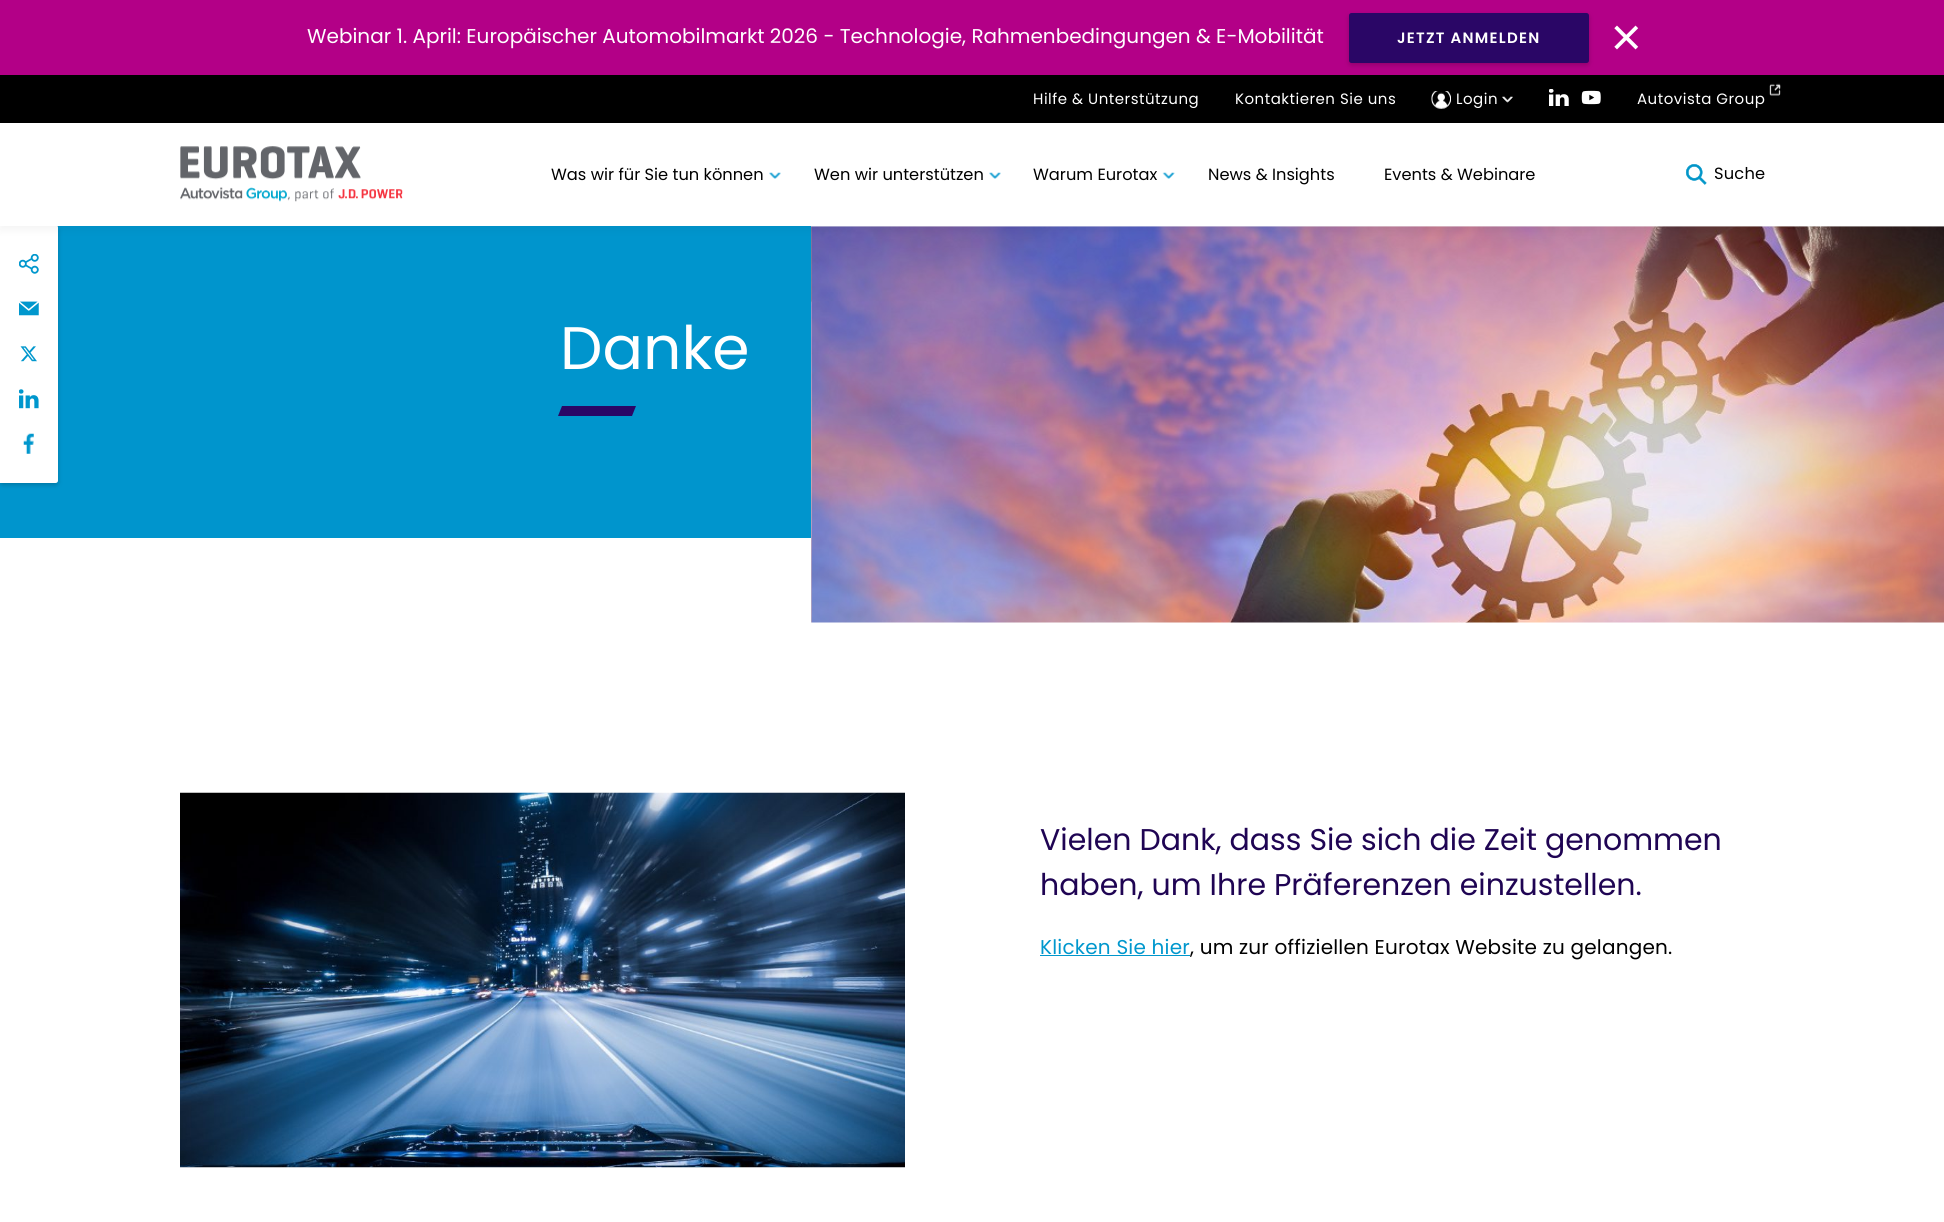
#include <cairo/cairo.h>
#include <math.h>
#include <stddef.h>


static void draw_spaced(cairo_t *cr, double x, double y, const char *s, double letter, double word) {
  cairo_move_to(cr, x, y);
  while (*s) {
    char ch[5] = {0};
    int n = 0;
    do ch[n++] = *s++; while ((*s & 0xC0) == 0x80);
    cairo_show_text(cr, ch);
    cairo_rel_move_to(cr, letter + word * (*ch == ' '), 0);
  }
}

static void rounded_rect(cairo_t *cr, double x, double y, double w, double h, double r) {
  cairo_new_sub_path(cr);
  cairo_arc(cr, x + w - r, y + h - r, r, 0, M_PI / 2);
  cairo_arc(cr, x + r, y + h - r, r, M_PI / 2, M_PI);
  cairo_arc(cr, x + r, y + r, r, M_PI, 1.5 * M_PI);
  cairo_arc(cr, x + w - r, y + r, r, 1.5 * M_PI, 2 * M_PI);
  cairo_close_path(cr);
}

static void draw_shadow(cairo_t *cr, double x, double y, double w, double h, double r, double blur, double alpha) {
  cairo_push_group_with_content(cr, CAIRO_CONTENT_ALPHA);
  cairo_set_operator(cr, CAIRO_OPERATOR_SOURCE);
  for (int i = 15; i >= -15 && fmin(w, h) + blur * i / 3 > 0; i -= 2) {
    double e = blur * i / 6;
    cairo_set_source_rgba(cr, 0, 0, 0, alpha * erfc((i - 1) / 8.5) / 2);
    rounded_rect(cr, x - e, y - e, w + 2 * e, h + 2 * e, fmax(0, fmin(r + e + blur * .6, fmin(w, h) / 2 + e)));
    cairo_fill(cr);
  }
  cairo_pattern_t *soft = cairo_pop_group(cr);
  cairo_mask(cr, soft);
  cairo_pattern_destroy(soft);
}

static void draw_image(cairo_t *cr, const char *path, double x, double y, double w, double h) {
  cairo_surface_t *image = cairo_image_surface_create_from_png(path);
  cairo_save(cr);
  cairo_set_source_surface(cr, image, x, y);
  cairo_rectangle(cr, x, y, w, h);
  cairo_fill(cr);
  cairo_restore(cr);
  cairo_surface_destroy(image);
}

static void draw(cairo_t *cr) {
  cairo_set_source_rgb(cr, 1, 1, 1);
  cairo_paint(cr);
  cairo_set_source_rgb(cr, 0, 149 / 255.0, 205 / 255.0);
  cairo_rectangle(cr, 0, 226, 811, 312);
  cairo_fill(cr);
  cairo_set_source_rgb(cr, 0, 0, 0);
  draw_shadow(cr, 0, 228, 58, 257, 2.5, 2.5, 0.2);
  cairo_set_source_rgb(cr, 1, 1, 1);
  cairo_new_path(cr);
  cairo_move_to(cr, 0, 225);
  cairo_line_to(cr, 55.5, 225);
  cairo_curve_to(cr, 57, 225, 58, 226, 58, 227.5);
  cairo_line_to(cr, 58, 480.5);
  cairo_curve_to(cr, 58, 482, 57, 483, 55.5, 483);
  cairo_line_to(cr, 0, 483);
  cairo_close_path(cr);
  cairo_fill(cr);
  draw_image(cr, "images/16.png", 811, 226, 1133, 397);
  cairo_set_source_rgb(cr, 20 / 255.0, 20 / 255.0, 20 / 255.0);
  draw_shadow(cr, 0, 79, 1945, 151, 0, 4, 0.05);
  cairo_set_source_rgb(cr, 179 / 255.0, 0, 135 / 255.0);
  cairo_rectangle(cr, 0, 0, 1944, 75);
  cairo_fill(cr);
  cairo_set_source_rgb(cr, 0, 0, 0);
  draw_shadow(cr, 1349, 15, 240, 50, 2.5, 2.5, 0.2);
  cairo_set_source_rgb(cr, 42 / 255.0, 6 / 255.0, 102 / 255.0);
  rounded_rect(cr, 1349, 13, 240, 50, 2.5);
  cairo_fill(cr);
  draw_image(cr, "images/1.png", 1614, 25, 25, 25);
  cairo_set_source_rgb(cr, 1, 1, 1);
  cairo_rectangle(cr, 0, 123, 1944, 103);
  cairo_fill(cr);
  cairo_set_source_rgb(cr, 0, 0, 0);
  cairo_rectangle(cr, 0, 75, 1944, 48);
  cairo_fill(cr);
  draw_image(cr, "images/2.png", 1431, 91, 20, 18);
  draw_image(cr, "images/3.png", 1502, 96, 11, 7);
  draw_image(cr, "images/4.png", 1549, 89, 20, 17);
  draw_image(cr, "images/5.png", 1581, 90, 20, 15);
  draw_image(cr, "images/6.png", 1769, 83, 12, 13);
  draw_image(cr, "images/7.png", 180, 146, 223, 56);
  draw_image(cr, "images/8.png", 769, 172, 12, 7);
  draw_image(cr, "images/8.png", 989, 172, 12, 7);
  draw_image(cr, "images/9.png", 1162, 172, 13, 7);
  draw_image(cr, "images/10.png", 1685, 164, 22, 21);
  draw_image(cr, "images/11.png", 19, 254, 20, 20);
  draw_image(cr, "images/12.png", 19, 301, 20, 15);
  draw_image(cr, "images/13.png", 20, 346, 17, 16);
  draw_image(cr, "images/14.png", 19, 389, 20, 20);
  draw_image(cr, "images/15.png", 23, 433, 11, 21);
  cairo_set_source_rgb(cr, 42 / 255.0, 6 / 255.0, 102 / 255.0);
  cairo_new_path(cr);
  cairo_move_to(cr, 562, 406);
  cairo_line_to(cr, 636, 406);
  cairo_line_to(cr, 632, 416);
  cairo_line_to(cr, 558, 416);
  cairo_close_path(cr);
  cairo_fill(cr);
  draw_image(cr, "images/17.png", 180, 792, 725, 376);
  cairo_set_source_rgb(cr, 0, 151 / 255.0, 205 / 255.0);
  cairo_rectangle(cr, 1040, 955, 150, 1);
  cairo_fill(cr);
  cairo_select_font_face(cr, "Poppins", CAIRO_FONT_SLANT_NORMAL, CAIRO_FONT_WEIGHT_NORMAL);
  cairo_set_font_size(cr, 20);
  cairo_set_source_rgb(cr, 1, 1, 1);
  cairo_move_to(cr, 307, 43);
  cairo_show_text(cr, "Webinar 1. April: Europäischer Automobilmarkt 2026 - Technologie, Rahmenbedingungen & E-Mobilität");
  cairo_select_font_face(cr, "Poppins SemiBold", CAIRO_FONT_SLANT_NORMAL, CAIRO_FONT_WEIGHT_NORMAL);
  cairo_set_font_size(cr, 15);
  draw_spaced(cr, 1397, 43, "JETZT ANMELDEN", 1.25, 0);
  cairo_select_font_face(cr, "Poppins", CAIRO_FONT_SLANT_NORMAL, CAIRO_FONT_WEIGHT_NORMAL);
  draw_spaced(cr, 1033, 104, "Hilfe & Unterstützung", 0.5, 0);
  draw_spaced(cr, 1235, 104, "Kontaktieren Sie uns", 0.5, 0);
  draw_spaced(cr, 1456, 104, "Login", 0.5, 0);
  draw_spaced(cr, 1637, 104, "Autovista Group", 0.5, 0);
  cairo_set_font_size(cr, 16.25);
  cairo_set_source_rgb(cr, 0, 0, 0);
  cairo_move_to(cr, 551, 180);
  cairo_show_text(cr, "Was wir für Sie tun können");
  cairo_move_to(cr, 814, 180);
  cairo_show_text(cr, "Wen wir unterstützen");
  cairo_move_to(cr, 1033, 180);
  cairo_show_text(cr, "Warum Eurotax");
  cairo_move_to(cr, 1208, 180);
  cairo_show_text(cr, "News & Insights");
  cairo_move_to(cr, 1384, 180);
  cairo_show_text(cr, "Events & Webinare");
  draw_spaced(cr, 1714, 179, "Suche", 0.2, 0);
  cairo_set_font_size(cr, 60);
  cairo_set_source_rgb(cr, 1, 1, 1);
  cairo_move_to(cr, 560, 369);
  cairo_show_text(cr, "Danke");
  cairo_set_font_size(cr, 30);
  cairo_set_source_rgb(cr, 31 / 255.0, 4 / 255.0, 83 / 255.0);
  cairo_move_to(cr, 1040, 850);
  cairo_show_text(cr, "Vielen Dank, dass Sie sich die Zeit genommen");
  cairo_move_to(cr, 1040, 895);
  cairo_show_text(cr, "haben, um Ihre Präferenzen einzustellen.");
  cairo_set_font_size(cr, 20);
  cairo_set_source_rgb(cr, 0, 151 / 255.0, 205 / 255.0);
  draw_spaced(cr, 1040, 954, "Klicken Sie hier", 0.2, 0);
  cairo_set_source_rgb(cr, 0, 0, 0);
  draw_spaced(cr, 1190, 954, ", um zur offiziellen Eurotax Website zu gelangen.", 0.2, 0);
}

int main(void) {
  cairo_surface_t *surface = cairo_image_surface_create(CAIRO_FORMAT_RGB24, 1944, 1222);
  cairo_t *cr = cairo_create(surface);
  cairo_font_options_t *options = cairo_font_options_create();
  cairo_font_options_set_hint_metrics(options, CAIRO_HINT_METRICS_OFF);
  cairo_font_options_set_hint_style(options, CAIRO_HINT_STYLE_NONE);
  cairo_set_font_options(cr, options);
  cairo_set_miter_limit(cr, 4);
  draw(cr);
  cairo_surface_write_to_png(surface, "out.png");
  cairo_font_options_destroy(options);
  cairo_destroy(cr);
  cairo_surface_destroy(surface);
  return 0;
}
